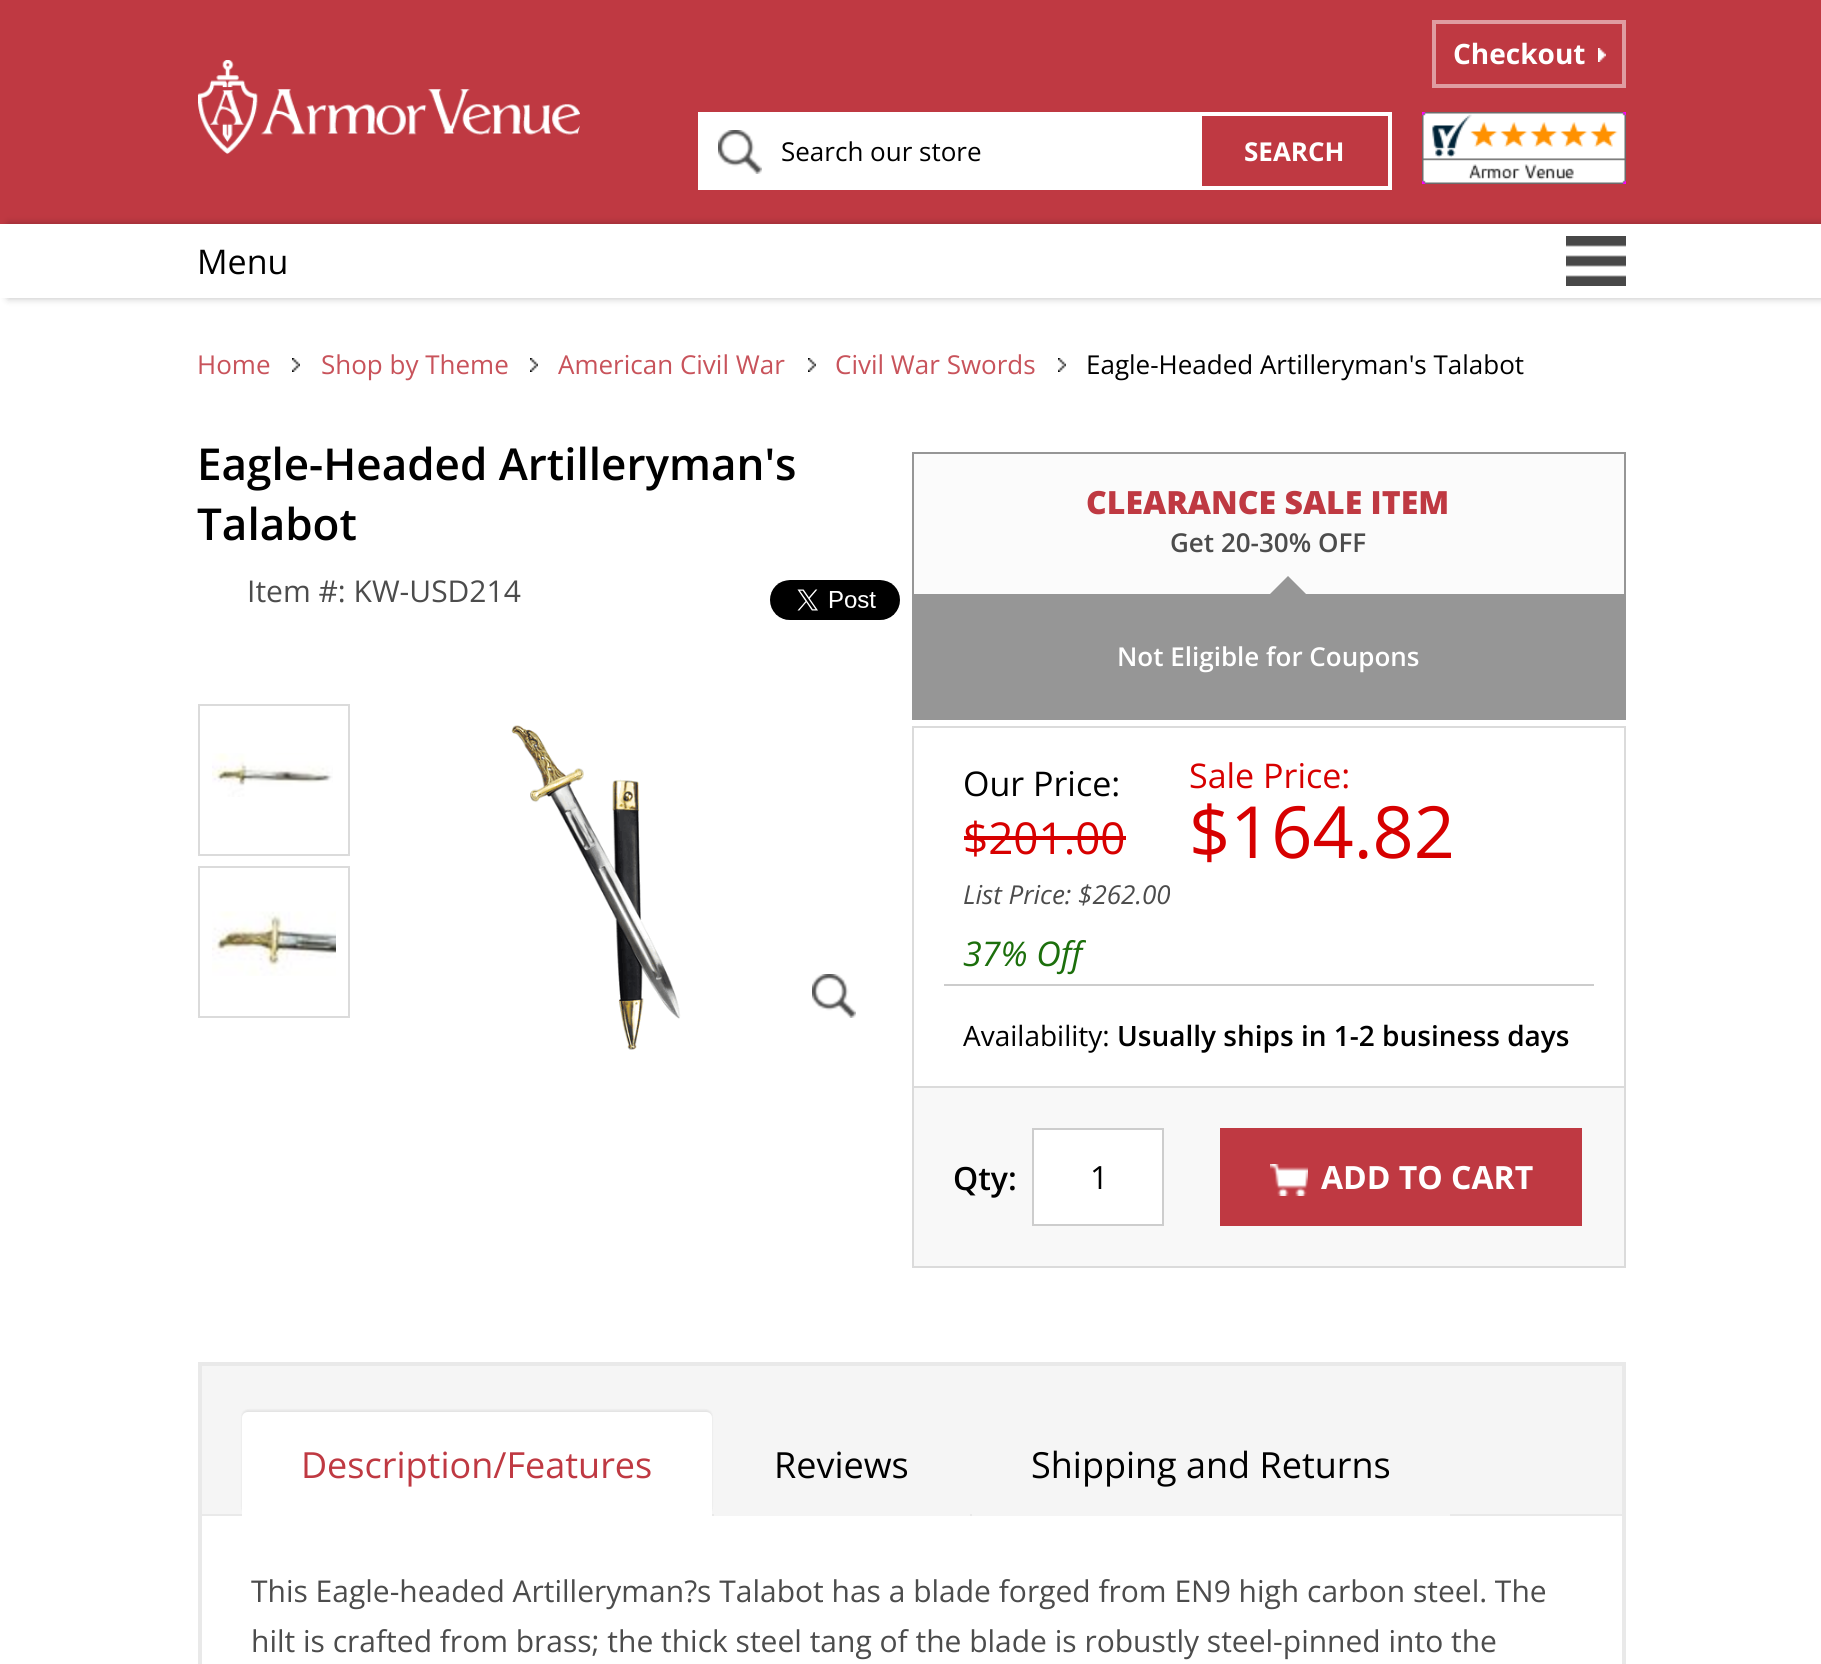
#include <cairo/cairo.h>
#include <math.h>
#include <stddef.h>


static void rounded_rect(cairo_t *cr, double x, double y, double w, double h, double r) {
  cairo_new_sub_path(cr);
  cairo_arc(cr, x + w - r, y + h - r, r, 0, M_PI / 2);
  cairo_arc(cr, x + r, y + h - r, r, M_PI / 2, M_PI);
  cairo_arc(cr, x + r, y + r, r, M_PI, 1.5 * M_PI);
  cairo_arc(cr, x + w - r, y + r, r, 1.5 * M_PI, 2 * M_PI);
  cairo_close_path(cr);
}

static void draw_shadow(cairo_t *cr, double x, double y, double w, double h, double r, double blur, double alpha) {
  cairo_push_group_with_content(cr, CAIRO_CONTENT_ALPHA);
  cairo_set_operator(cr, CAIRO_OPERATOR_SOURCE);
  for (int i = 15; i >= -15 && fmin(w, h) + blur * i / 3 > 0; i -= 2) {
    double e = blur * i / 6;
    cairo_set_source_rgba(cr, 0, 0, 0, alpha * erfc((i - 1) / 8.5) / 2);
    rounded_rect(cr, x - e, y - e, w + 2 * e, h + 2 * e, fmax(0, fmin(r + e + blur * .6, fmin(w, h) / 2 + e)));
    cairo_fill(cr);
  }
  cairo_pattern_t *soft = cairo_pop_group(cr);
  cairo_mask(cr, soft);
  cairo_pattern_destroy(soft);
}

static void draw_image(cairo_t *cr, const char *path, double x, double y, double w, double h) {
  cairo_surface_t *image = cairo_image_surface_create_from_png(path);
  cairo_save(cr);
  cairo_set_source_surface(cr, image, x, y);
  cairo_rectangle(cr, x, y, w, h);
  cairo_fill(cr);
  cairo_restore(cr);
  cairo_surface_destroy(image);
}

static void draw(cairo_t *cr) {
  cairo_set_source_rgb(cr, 1, 1, 1);
  cairo_paint(cr);
  cairo_set_source_rgb(cr, 191 / 255.0, 57 / 255.0, 66 / 255.0);
  cairo_rectangle(cr, 0, 0, 1821, 224);
  cairo_fill(cr);
  draw_image(cr, "images/1.png", 198, 60, 382, 94);
  cairo_rectangle(cr, 1434, 22, 190, 64);
  cairo_set_source_rgb(cr, 223 / 255.0, 156 / 255.0, 161 / 255.0);
  cairo_set_line_width(cr, 4);
  cairo_stroke(cr);
  draw_image(cr, "images/2.png", 1598, 48, 8, 14);
  cairo_set_source_rgb(cr, 1, 1, 1);
  cairo_rectangle(cr, 698, 112, 694, 78);
  cairo_fill(cr);
  draw_image(cr, "images/3.png", 718, 130, 44, 44);
  cairo_set_source_rgb(cr, 191 / 255.0, 57 / 255.0, 66 / 255.0);
  cairo_rectangle(cr, 1202, 116, 186, 70);
  cairo_fill(cr);
  draw_image(cr, "images/4.png", 1422, 112, 204, 72);
  cairo_save(cr);
  cairo_set_fill_rule(cr, CAIRO_FILL_RULE_EVEN_ODD);
  cairo_new_path(cr);
  cairo_move_to(cr, 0, 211);
  cairo_line_to(cr, 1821, 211);
  cairo_line_to(cr, 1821, 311);
  cairo_line_to(cr, 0, 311);
  cairo_close_path(cr);
  cairo_move_to(cr, 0, 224);
  cairo_line_to(cr, 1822, 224);
  cairo_line_to(cr, 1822, 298);
  cairo_line_to(cr, 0, 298);
  cairo_close_path(cr);
  cairo_clip(cr);
  cairo_set_source_rgb(cr, 0, 0, 0);
  draw_shadow(cr, 8, 224, 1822, 74, 0, 4, 0.27);
  cairo_restore(cr);
  draw_image(cr, "images/5.png", 1566, 236, 60, 50);
  draw_image(cr, "images/6.png", 292, 358, 8, 14);
  draw_image(cr, "images/6.png", 530, 358, 8, 14);
  draw_image(cr, "images/6.png", 808, 358, 8, 14);
  draw_image(cr, "images/6.png", 1058, 358, 8, 14);
  draw_image(cr, "images/7.png", 770, 580, 130, 40);
  cairo_rectangle(cr, 199, 705, 150, 150);
  cairo_set_source_rgb(cr, 219 / 255.0, 219 / 255.0, 219 / 255.0);
  cairo_set_line_width(cr, 2);
  cairo_stroke(cr);
  draw_image(cr, "images/8.png", 212, 753, 121, 44);
  cairo_rectangle(cr, 199, 867, 150, 150);
  cairo_stroke(cr);
  draw_image(cr, "images/9.png", 212, 911, 124, 65);
  draw_image(cr, "images/10.png", 511, 725, 170, 325);
  draw_image(cr, "images/3.png", 812, 974, 44, 44);
  cairo_rectangle(cr, 913, 453, 712, 266);
  cairo_set_source_rgb(cr, 150 / 255.0, 150 / 255.0, 150 / 255.0);
  cairo_stroke(cr);
  cairo_set_source_rgb(cr, 251 / 255.0, 251 / 255.0, 251 / 255.0);
  cairo_rectangle(cr, 914, 454, 710, 140);
  cairo_fill(cr);
  cairo_set_source_rgb(cr, 150 / 255.0, 150 / 255.0, 150 / 255.0);
  cairo_rectangle(cr, 914, 594, 710, 124);
  cairo_fill(cr);
  cairo_new_path(cr);
  cairo_move_to(cr, 1308, 596);
  cairo_line_to(cr, 1268, 596);
  cairo_line_to(cr, 1288, 576);
  cairo_close_path(cr);
  cairo_fill(cr);
  cairo_rectangle(cr, 913, 727, 712, 540);
  cairo_set_source_rgb(cr, 219 / 255.0, 219 / 255.0, 219 / 255.0);
  cairo_stroke(cr);
  cairo_set_source_rgb(cr, 215 / 255.0, 0, 0);
  cairo_rectangle(cr, 964, 836, 162, 4);
  cairo_fill(cr);
  cairo_set_source_rgb(cr, 204 / 255.0, 204 / 255.0, 204 / 255.0);
  cairo_rectangle(cr, 944, 984, 650, 2);
  cairo_fill(cr);
  cairo_set_source_rgb(cr, 248 / 255.0, 248 / 255.0, 248 / 255.0);
  cairo_rectangle(cr, 914, 1088, 710, 178);
  cairo_fill(cr);
  cairo_set_source_rgb(cr, 219 / 255.0, 219 / 255.0, 219 / 255.0);
  cairo_rectangle(cr, 914, 1086, 710, 2);
  cairo_fill(cr);
  cairo_set_source_rgb(cr, 1, 1, 1);
  cairo_rectangle(cr, 1033, 1129, 130, 96);
  cairo_fill_preserve(cr);
  cairo_set_source_rgb(cr, 205 / 255.0, 205 / 255.0, 205 / 255.0);
  cairo_stroke(cr);
  cairo_set_source_rgb(cr, 191 / 255.0, 57 / 255.0, 66 / 255.0);
  cairo_rectangle(cr, 1220, 1128, 362, 98);
  cairo_fill(cr);
  draw_image(cr, "images/11.png", 1270, 1164, 38, 32);
  cairo_rectangle(cr, 200, 1364, 1424, 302);
  cairo_set_source_rgb(cr, 233 / 255.0, 233 / 255.0, 233 / 255.0);
  cairo_set_line_width(cr, 4);
  cairo_stroke(cr);
  cairo_set_source_rgb(cr, 245 / 255.0, 245 / 255.0, 245 / 255.0);
  cairo_rectangle(cr, 202, 1366, 1420, 148);
  cairo_fill(cr);
  cairo_set_source_rgb(cr, 233 / 255.0, 233 / 255.0, 233 / 255.0);
  cairo_rectangle(cr, 202, 1514, 1420, 2);
  cairo_fill(cr);
  cairo_set_source_rgb(cr, 0, 0, 0);
  draw_shadow(cr, 242, 1410, 470, 104, 6, 1, 0.08);
  cairo_set_source_rgb(cr, 1, 1, 1);
  cairo_new_path(cr);
  cairo_move_to(cr, 248, 1412);
  cairo_line_to(cr, 706, 1412);
  cairo_curve_to(cr, 709.5, 1412, 712, 1414.5, 712, 1418);
  cairo_line_to(cr, 712, 1516);
  cairo_line_to(cr, 242, 1516);
  cairo_line_to(cr, 242, 1418);
  cairo_curve_to(cr, 242, 1414.5, 244.5, 1412, 248, 1412);
  cairo_close_path(cr);
  cairo_fill(cr);
  cairo_set_source_rgb(cr, 245 / 255.0, 245 / 255.0, 245 / 255.0);
  cairo_new_path(cr);
  cairo_move_to(cr, 720, 1412);
  cairo_line_to(cr, 964, 1412);
  cairo_curve_to(cr, 967.5, 1412, 970, 1414.5, 970, 1418);
  cairo_line_to(cr, 970, 1516);
  cairo_line_to(cr, 714, 1516);
  cairo_line_to(cr, 714, 1418);
  cairo_curve_to(cr, 714, 1414.5, 716.5, 1412, 720, 1412);
  cairo_close_path(cr);
  cairo_fill(cr);
  cairo_new_path(cr);
  cairo_move_to(cr, 978, 1412);
  cairo_line_to(cr, 1444, 1412);
  cairo_curve_to(cr, 1447.5, 1412, 1450, 1414.5, 1450, 1418);
  cairo_line_to(cr, 1450, 1516);
  cairo_line_to(cr, 972, 1516);
  cairo_line_to(cr, 972, 1418);
  cairo_curve_to(cr, 972, 1414.5, 974.5, 1412, 978, 1412);
  cairo_close_path(cr);
  cairo_fill(cr);
  cairo_select_font_face(cr, "Open Sans", CAIRO_FONT_SLANT_NORMAL, CAIRO_FONT_WEIGHT_BOLD);
  cairo_set_font_size(cr, 28);
  cairo_set_source_rgb(cr, 1, 1, 1);
  cairo_move_to(cr, 1453, 64);
  cairo_show_text(cr, "Checkout");
  cairo_select_font_face(cr, "Open Sans", CAIRO_FONT_SLANT_NORMAL, CAIRO_FONT_WEIGHT_NORMAL);
  cairo_set_font_size(cr, 26);
  cairo_set_source_rgb(cr, 0, 0, 0);
  cairo_move_to(cr, 781, 161);
  cairo_show_text(cr, "Search our store");
  cairo_select_font_face(cr, "Open Sans", CAIRO_FONT_SLANT_NORMAL, CAIRO_FONT_WEIGHT_BOLD);
  cairo_set_source_rgb(cr, 1, 1, 1);
  cairo_move_to(cr, 1244, 161);
  cairo_show_text(cr, "SEARCH");
  cairo_select_font_face(cr, "Open Sans", CAIRO_FONT_SLANT_NORMAL, CAIRO_FONT_WEIGHT_NORMAL);
  cairo_set_font_size(cr, 34);
  cairo_set_source_rgb(cr, 0, 0, 0);
  cairo_move_to(cr, 197, 274);
  cairo_show_text(cr, "Menu");
  cairo_set_font_size(cr, 26);
  cairo_set_source_rgb(cr, 200 / 255.0, 83 / 255.0, 91 / 255.0);
  cairo_move_to(cr, 197, 374);
  cairo_show_text(cr, "Home");
  cairo_move_to(cr, 321, 374);
  cairo_show_text(cr, "Shop by Theme");
  cairo_move_to(cr, 558, 374);
  cairo_show_text(cr, "American Civil War");
  cairo_move_to(cr, 835, 374);
  cairo_show_text(cr, "Civil War Swords");
  cairo_set_source_rgb(cr, 0, 0, 0);
  cairo_move_to(cr, 1086, 374);
  cairo_show_text(cr, "Eagle-Headed Artilleryman's Talabot");
  cairo_select_font_face(cr, "Open Sans SemiBold", CAIRO_FONT_SLANT_NORMAL, CAIRO_FONT_WEIGHT_NORMAL);
  cairo_set_font_size(cr, 44);
  cairo_move_to(cr, 197, 480);
  cairo_show_text(cr, "Eagle-Headed Artilleryman's");
  cairo_move_to(cr, 197, 540);
  cairo_show_text(cr, "Talabot");
  cairo_select_font_face(cr, "Open Sans", CAIRO_FONT_SLANT_NORMAL, CAIRO_FONT_WEIGHT_NORMAL);
  cairo_set_font_size(cr, 30);
  cairo_set_source_rgb(cr, 76 / 255.0, 76 / 255.0, 76 / 255.0);
  cairo_move_to(cr, 247, 602);
  cairo_show_text(cr, "Item #: KW-USD214");
  cairo_select_font_face(cr, "Open Sans ExtraBold", CAIRO_FONT_SLANT_NORMAL, CAIRO_FONT_WEIGHT_NORMAL);
  cairo_set_font_size(cr, 32);
  cairo_set_source_rgb(cr, 191 / 255.0, 57 / 255.0, 66 / 255.0);
  cairo_move_to(cr, 1086, 514);
  cairo_show_text(cr, "CLEARANCE SALE ITEM");
  cairo_select_font_face(cr, "Open Sans SemiBold", CAIRO_FONT_SLANT_NORMAL, CAIRO_FONT_WEIGHT_NORMAL);
  cairo_set_font_size(cr, 26);
  cairo_set_source_rgb(cr, 76 / 255.0, 76 / 255.0, 76 / 255.0);
  cairo_move_to(cr, 1170, 552);
  cairo_show_text(cr, "Get 20-30% OFF");
  cairo_set_source_rgb(cr, 1, 1, 1);
  cairo_move_to(cr, 1117, 666);
  cairo_show_text(cr, "Not Eligible for Coupons");
  cairo_select_font_face(cr, "Open Sans", CAIRO_FONT_SLANT_NORMAL, CAIRO_FONT_WEIGHT_NORMAL);
  cairo_set_font_size(cr, 34);
  cairo_set_source_rgb(cr, 0, 0, 0);
  cairo_move_to(cr, 963, 796);
  cairo_show_text(cr, "Our Price:");
  cairo_set_font_size(cr, 44);
  cairo_set_source_rgb(cr, 215 / 255.0, 0, 0);
  cairo_move_to(cr, 963, 854);
  cairo_show_text(cr, "$201.00");
  cairo_select_font_face(cr, "Open Sans", CAIRO_FONT_SLANT_ITALIC, CAIRO_FONT_WEIGHT_NORMAL);
  cairo_set_font_size(cr, 26);
  cairo_set_source_rgb(cr, 76 / 255.0, 76 / 255.0, 76 / 255.0);
  cairo_move_to(cr, 963, 904);
  cairo_show_text(cr, "List Price: $262.00");
  cairo_select_font_face(cr, "Open Sans", CAIRO_FONT_SLANT_NORMAL, CAIRO_FONT_WEIGHT_NORMAL);
  cairo_set_font_size(cr, 34);
  cairo_set_source_rgb(cr, 215 / 255.0, 0, 0);
  cairo_move_to(cr, 1189, 788);
  cairo_show_text(cr, "Sale Price:");
  cairo_set_font_size(cr, 72);
  cairo_move_to(cr, 1189, 858);
  cairo_show_text(cr, "$164.82");
  cairo_select_font_face(cr, "Open Sans", CAIRO_FONT_SLANT_ITALIC, CAIRO_FONT_WEIGHT_NORMAL);
  cairo_set_font_size(cr, 34);
  cairo_set_source_rgb(cr, 28 / 255.0, 111 / 255.0, 12 / 255.0);
  cairo_move_to(cr, 963, 966);
  cairo_show_text(cr, "37% Off");
  cairo_select_font_face(cr, "Open Sans", CAIRO_FONT_SLANT_NORMAL, CAIRO_FONT_WEIGHT_NORMAL);
  cairo_set_font_size(cr, 28);
  cairo_set_source_rgb(cr, 0, 0, 0);
  cairo_move_to(cr, 963, 1046);
  cairo_show_text(cr, "Availability:");
  cairo_select_font_face(cr, "Open Sans SemiBold", CAIRO_FONT_SLANT_NORMAL, CAIRO_FONT_WEIGHT_NORMAL);
  cairo_move_to(cr, 1117, 1046);
  cairo_show_text(cr, "Usually ships in 1-2 business days");
  cairo_set_font_size(cr, 32);
  cairo_move_to(cr, 953, 1190);
  cairo_show_text(cr, "Qty:");
  cairo_select_font_face(cr, "Open Sans", CAIRO_FONT_SLANT_NORMAL, CAIRO_FONT_WEIGHT_NORMAL);
  cairo_move_to(cr, 1090, 1189);
  cairo_show_text(cr, "1");
  cairo_select_font_face(cr, "Open Sans", CAIRO_FONT_SLANT_NORMAL, CAIRO_FONT_WEIGHT_BOLD);
  cairo_set_source_rgb(cr, 1, 1, 1);
  cairo_move_to(cr, 1321, 1189);
  cairo_show_text(cr, "ADD TO CART");
  cairo_select_font_face(cr, "Open Sans", CAIRO_FONT_SLANT_NORMAL, CAIRO_FONT_WEIGHT_NORMAL);
  cairo_set_font_size(cr, 36);
  cairo_set_source_rgb(cr, 191 / 255.0, 57 / 255.0, 66 / 255.0);
  cairo_move_to(cr, 301, 1478);
  cairo_show_text(cr, "Description/Features");
  cairo_set_source_rgb(cr, 0, 0, 0);
  cairo_move_to(cr, 774, 1478);
  cairo_show_text(cr, "Reviews");
  cairo_move_to(cr, 1031, 1478);
  cairo_show_text(cr, "Shipping and Returns");
  cairo_set_font_size(cr, 30);
  cairo_set_source_rgb(cr, 76 / 255.0, 76 / 255.0, 76 / 255.0);
  cairo_move_to(cr, 251, 1602);
  cairo_show_text(cr, "This Eagle-headed Artilleryman?s Talabot has a blade forged from EN9 high carbon steel. The");
  cairo_move_to(cr, 251, 1652);
  cairo_show_text(cr, "hilt is crafted from brass; the thick steel tang of the blade is robustly steel-pinned into the");
}

int main(void) {
  cairo_surface_t *surface = cairo_image_surface_create(CAIRO_FORMAT_RGB24, 1821, 1664);
  cairo_t *cr = cairo_create(surface);
  cairo_font_options_t *options = cairo_font_options_create();
  cairo_font_options_set_hint_metrics(options, CAIRO_HINT_METRICS_OFF);
  cairo_font_options_set_hint_style(options, CAIRO_HINT_STYLE_NONE);
  cairo_set_font_options(cr, options);
  cairo_set_miter_limit(cr, 4);
  draw(cr);
  cairo_surface_write_to_png(surface, "out.png");
  cairo_font_options_destroy(options);
  cairo_destroy(cr);
  cairo_surface_destroy(surface);
  return 0;
}
